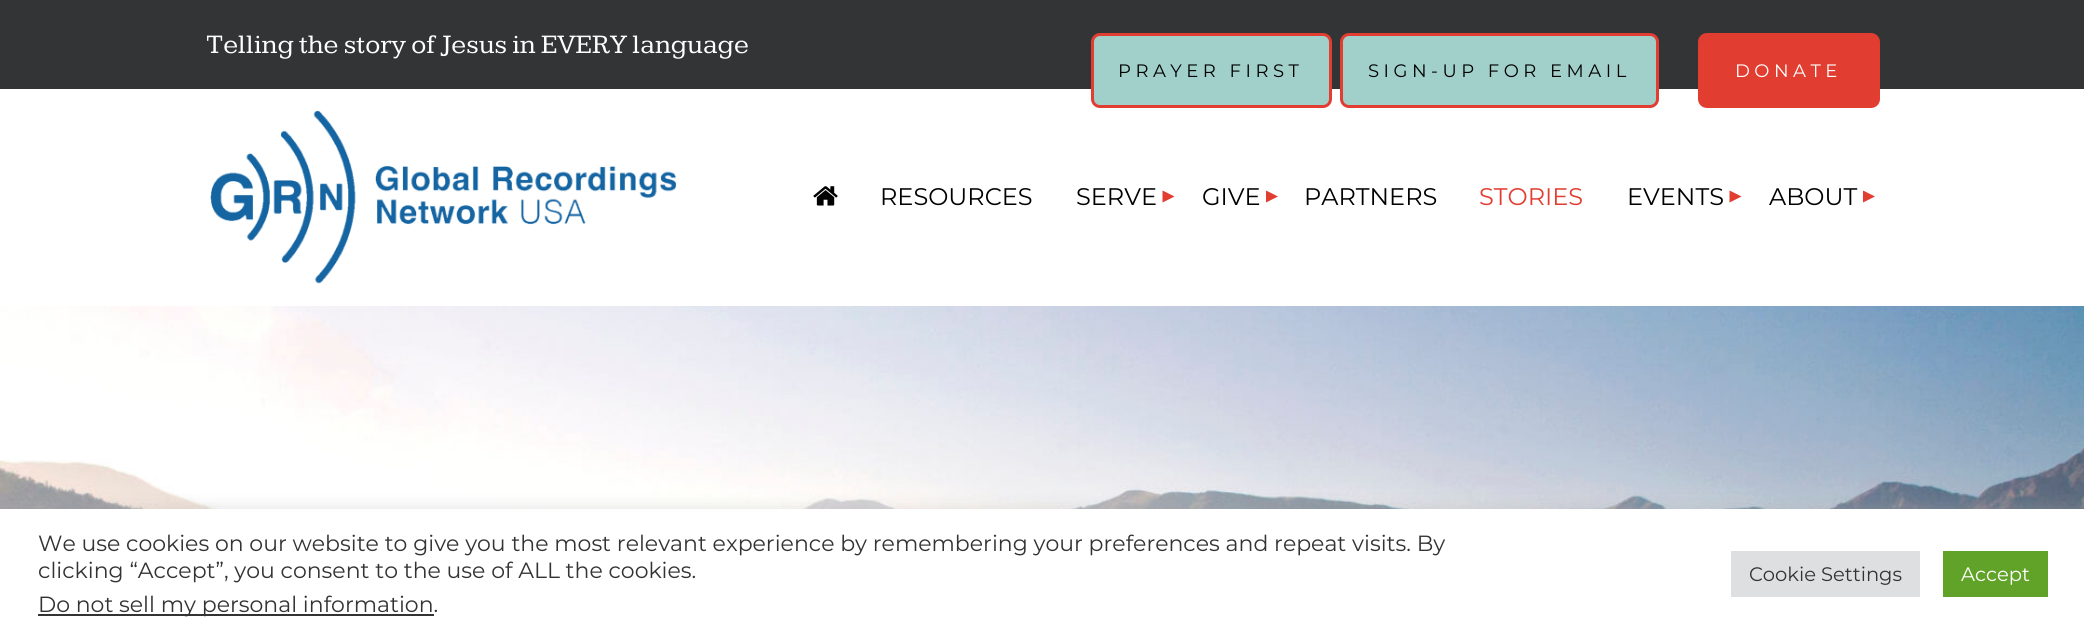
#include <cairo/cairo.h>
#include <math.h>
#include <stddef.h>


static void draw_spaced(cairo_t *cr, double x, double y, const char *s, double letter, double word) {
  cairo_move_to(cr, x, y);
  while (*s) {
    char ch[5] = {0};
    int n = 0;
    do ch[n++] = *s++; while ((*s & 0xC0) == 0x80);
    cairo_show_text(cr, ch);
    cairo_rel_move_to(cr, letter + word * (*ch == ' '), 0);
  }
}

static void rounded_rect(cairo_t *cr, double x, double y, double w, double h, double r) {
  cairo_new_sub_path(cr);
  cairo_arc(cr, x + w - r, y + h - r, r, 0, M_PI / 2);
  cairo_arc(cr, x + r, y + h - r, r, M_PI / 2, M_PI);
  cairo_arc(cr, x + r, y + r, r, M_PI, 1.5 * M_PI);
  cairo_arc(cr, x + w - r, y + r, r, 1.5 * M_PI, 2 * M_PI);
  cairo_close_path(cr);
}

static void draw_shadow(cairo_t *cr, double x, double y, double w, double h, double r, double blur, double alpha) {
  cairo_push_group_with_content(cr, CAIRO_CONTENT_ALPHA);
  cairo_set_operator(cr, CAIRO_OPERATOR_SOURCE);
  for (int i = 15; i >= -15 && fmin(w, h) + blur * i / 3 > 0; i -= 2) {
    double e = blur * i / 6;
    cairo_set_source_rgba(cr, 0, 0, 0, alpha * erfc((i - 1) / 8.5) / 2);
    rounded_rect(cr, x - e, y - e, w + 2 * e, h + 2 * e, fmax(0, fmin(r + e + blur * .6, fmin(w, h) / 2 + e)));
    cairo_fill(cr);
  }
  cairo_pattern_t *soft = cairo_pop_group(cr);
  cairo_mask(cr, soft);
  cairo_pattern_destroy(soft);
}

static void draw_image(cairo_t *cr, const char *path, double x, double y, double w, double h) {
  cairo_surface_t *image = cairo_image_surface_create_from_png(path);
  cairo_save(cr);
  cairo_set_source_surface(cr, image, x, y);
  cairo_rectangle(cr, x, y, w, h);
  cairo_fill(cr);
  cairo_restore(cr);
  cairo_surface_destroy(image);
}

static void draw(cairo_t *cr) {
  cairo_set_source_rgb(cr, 1, 1, 1);
  cairo_paint(cr);
  cairo_set_source_rgb(cr, 51 / 255.0, 52 / 255.0, 53 / 255.0);
  cairo_rectangle(cr, 0, 0, 2084, 89);
  cairo_fill(cr);
  cairo_set_source_rgb(cr, 161 / 255.0, 208 / 255.0, 202 / 255.0);
  rounded_rect(cr, 1092.5, 34.5, 238, 72, 7.5);
  cairo_fill_preserve(cr);
  cairo_set_source_rgb(cr, 225 / 255.0, 61 / 255.0, 49 / 255.0);
  cairo_set_line_width(cr, 3);
  cairo_stroke(cr);
  cairo_set_source_rgb(cr, 161 / 255.0, 208 / 255.0, 202 / 255.0);
  rounded_rect(cr, 1341.5, 34.5, 316, 72, 7.5);
  cairo_fill_preserve(cr);
  cairo_set_source_rgb(cr, 225 / 255.0, 61 / 255.0, 49 / 255.0);
  cairo_stroke(cr);
  rounded_rect(cr, 1698, 33, 182, 75, 9);
  cairo_fill(cr);
  draw_image(cr, "images/1.png", 210, 110, 467, 174);
  draw_image(cr, "images/2.png", 813, 186, 25, 20);
  cairo_new_path(cr);
  cairo_move_to(cr, 1162.5, 202.5);
  cairo_line_to(cr, 1162.5, 190.5);
  cairo_line_to(cr, 1174.5, 196.5);
  cairo_close_path(cr);
  cairo_fill(cr);
  cairo_new_path(cr);
  cairo_move_to(cr, 1266, 202.5);
  cairo_line_to(cr, 1266, 190.5);
  cairo_line_to(cr, 1278, 196.5);
  cairo_close_path(cr);
  cairo_fill(cr);
  cairo_new_path(cr);
  cairo_move_to(cr, 1729.5, 202.5);
  cairo_line_to(cr, 1729.5, 190.5);
  cairo_line_to(cr, 1741.5, 196.5);
  cairo_close_path(cr);
  cairo_fill(cr);
  cairo_new_path(cr);
  cairo_move_to(cr, 1863, 202.5);
  cairo_line_to(cr, 1863, 190.5);
  cairo_line_to(cr, 1875, 196.5);
  cairo_close_path(cr);
  cairo_fill(cr);
  draw_image(cr, "images/3.png", 0, 306, 2084, 203);
  cairo_set_source_rgb(cr, 172 / 255.0, 171 / 255.0, 171 / 255.0);
  draw_shadow(cr, 0, 507, 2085, 131, 0, 7.5, 0.3);
  cairo_set_source_rgb(cr, 1, 1, 1);
  cairo_rectangle(cr, 0, 509, 2084, 130);
  cairo_fill(cr);
  cairo_set_source_rgb(cr, 51 / 255.0, 51 / 255.0, 51 / 255.0);
  cairo_rectangle(cr, 38, 614, 396, 2);
  cairo_fill(cr);
  cairo_set_source_rgb(cr, 222 / 255.0, 223 / 255.0, 224 / 255.0);
  cairo_rectangle(cr, 1731, 551, 189, 46);
  cairo_fill(cr);
  cairo_set_source_rgb(cr, 97 / 255.0, 162 / 255.0, 41 / 255.0);
  cairo_rectangle(cr, 1943, 551, 105, 46);
  cairo_fill(cr);
  cairo_select_font_face(cr, "Kameron", CAIRO_FONT_SLANT_NORMAL, CAIRO_FONT_WEIGHT_NORMAL);
  cairo_set_font_size(cr, 27.6);
  cairo_set_source_rgb(cr, 1, 1, 1);
  cairo_move_to(cr, 206, 53);
  cairo_show_text(cr, "Telling the story of Jesus in EVERY language");
  cairo_select_font_face(cr, "Montserrat", CAIRO_FONT_SLANT_NORMAL, CAIRO_FONT_WEIGHT_NORMAL);
  cairo_set_font_size(cr, 18);
  cairo_set_source_rgb(cr, 0, 0, 0);
  draw_spaced(cr, 1118, 77, "PRAYER FIRST", 4.5, 0);
  draw_spaced(cr, 1368, 77, "SIGN-UP FOR EMAIL", 4.5, 0);
  cairo_set_source_rgb(cr, 1, 1, 1);
  draw_spaced(cr, 1735, 77, "DONATE", 4.5, 0);
  cairo_set_font_size(cr, 24);
  cairo_set_source_rgb(cr, 0, 0, 0);
  cairo_move_to(cr, 880, 205);
  cairo_show_text(cr, "RESOURCES");
  cairo_move_to(cr, 1076, 205);
  cairo_show_text(cr, "SERVE");
  cairo_move_to(cr, 1202, 205);
  cairo_show_text(cr, "GIVE");
  cairo_move_to(cr, 1304, 205);
  cairo_show_text(cr, "PARTNERS");
  cairo_set_source_rgb(cr, 225 / 255.0, 61 / 255.0, 49 / 255.0);
  cairo_move_to(cr, 1479, 205);
  cairo_show_text(cr, "STORIES");
  cairo_set_source_rgb(cr, 0, 0, 0);
  cairo_move_to(cr, 1627, 205);
  cairo_show_text(cr, "EVENTS");
  cairo_move_to(cr, 1769, 205);
  cairo_show_text(cr, "ABOUT");
  cairo_set_font_size(cr, 22);
  cairo_set_source_rgb(cr, 51 / 255.0, 51 / 255.0, 51 / 255.0);
  cairo_move_to(cr, 38, 551);
  cairo_show_text(cr, "We use cookies on our website to give you the most relevant experience by remembering your preferences and repeat visits. By");
  cairo_move_to(cr, 38, 578);
  cairo_show_text(cr, "clicking “Accept”, you consent to the use of ALL the cookies.");
  cairo_move_to(cr, 38, 612);
  cairo_show_text(cr, "Do not sell my personal information.");
  cairo_set_font_size(cr, 19.5);
  cairo_move_to(cr, 1749, 581);
  cairo_show_text(cr, "Cookie Settings");
  cairo_set_source_rgb(cr, 1, 1, 1);
  cairo_move_to(cr, 1961, 581);
  cairo_show_text(cr, "Accept");
}

int main(void) {
  cairo_surface_t *surface = cairo_image_surface_create(CAIRO_FORMAT_RGB24, 2084, 639);
  cairo_t *cr = cairo_create(surface);
  cairo_font_options_t *options = cairo_font_options_create();
  cairo_font_options_set_hint_metrics(options, CAIRO_HINT_METRICS_OFF);
  cairo_font_options_set_hint_style(options, CAIRO_HINT_STYLE_NONE);
  cairo_set_font_options(cr, options);
  cairo_set_miter_limit(cr, 4);
  draw(cr);
  cairo_surface_write_to_png(surface, "out.png");
  cairo_font_options_destroy(options);
  cairo_destroy(cr);
  cairo_surface_destroy(surface);
  return 0;
}
